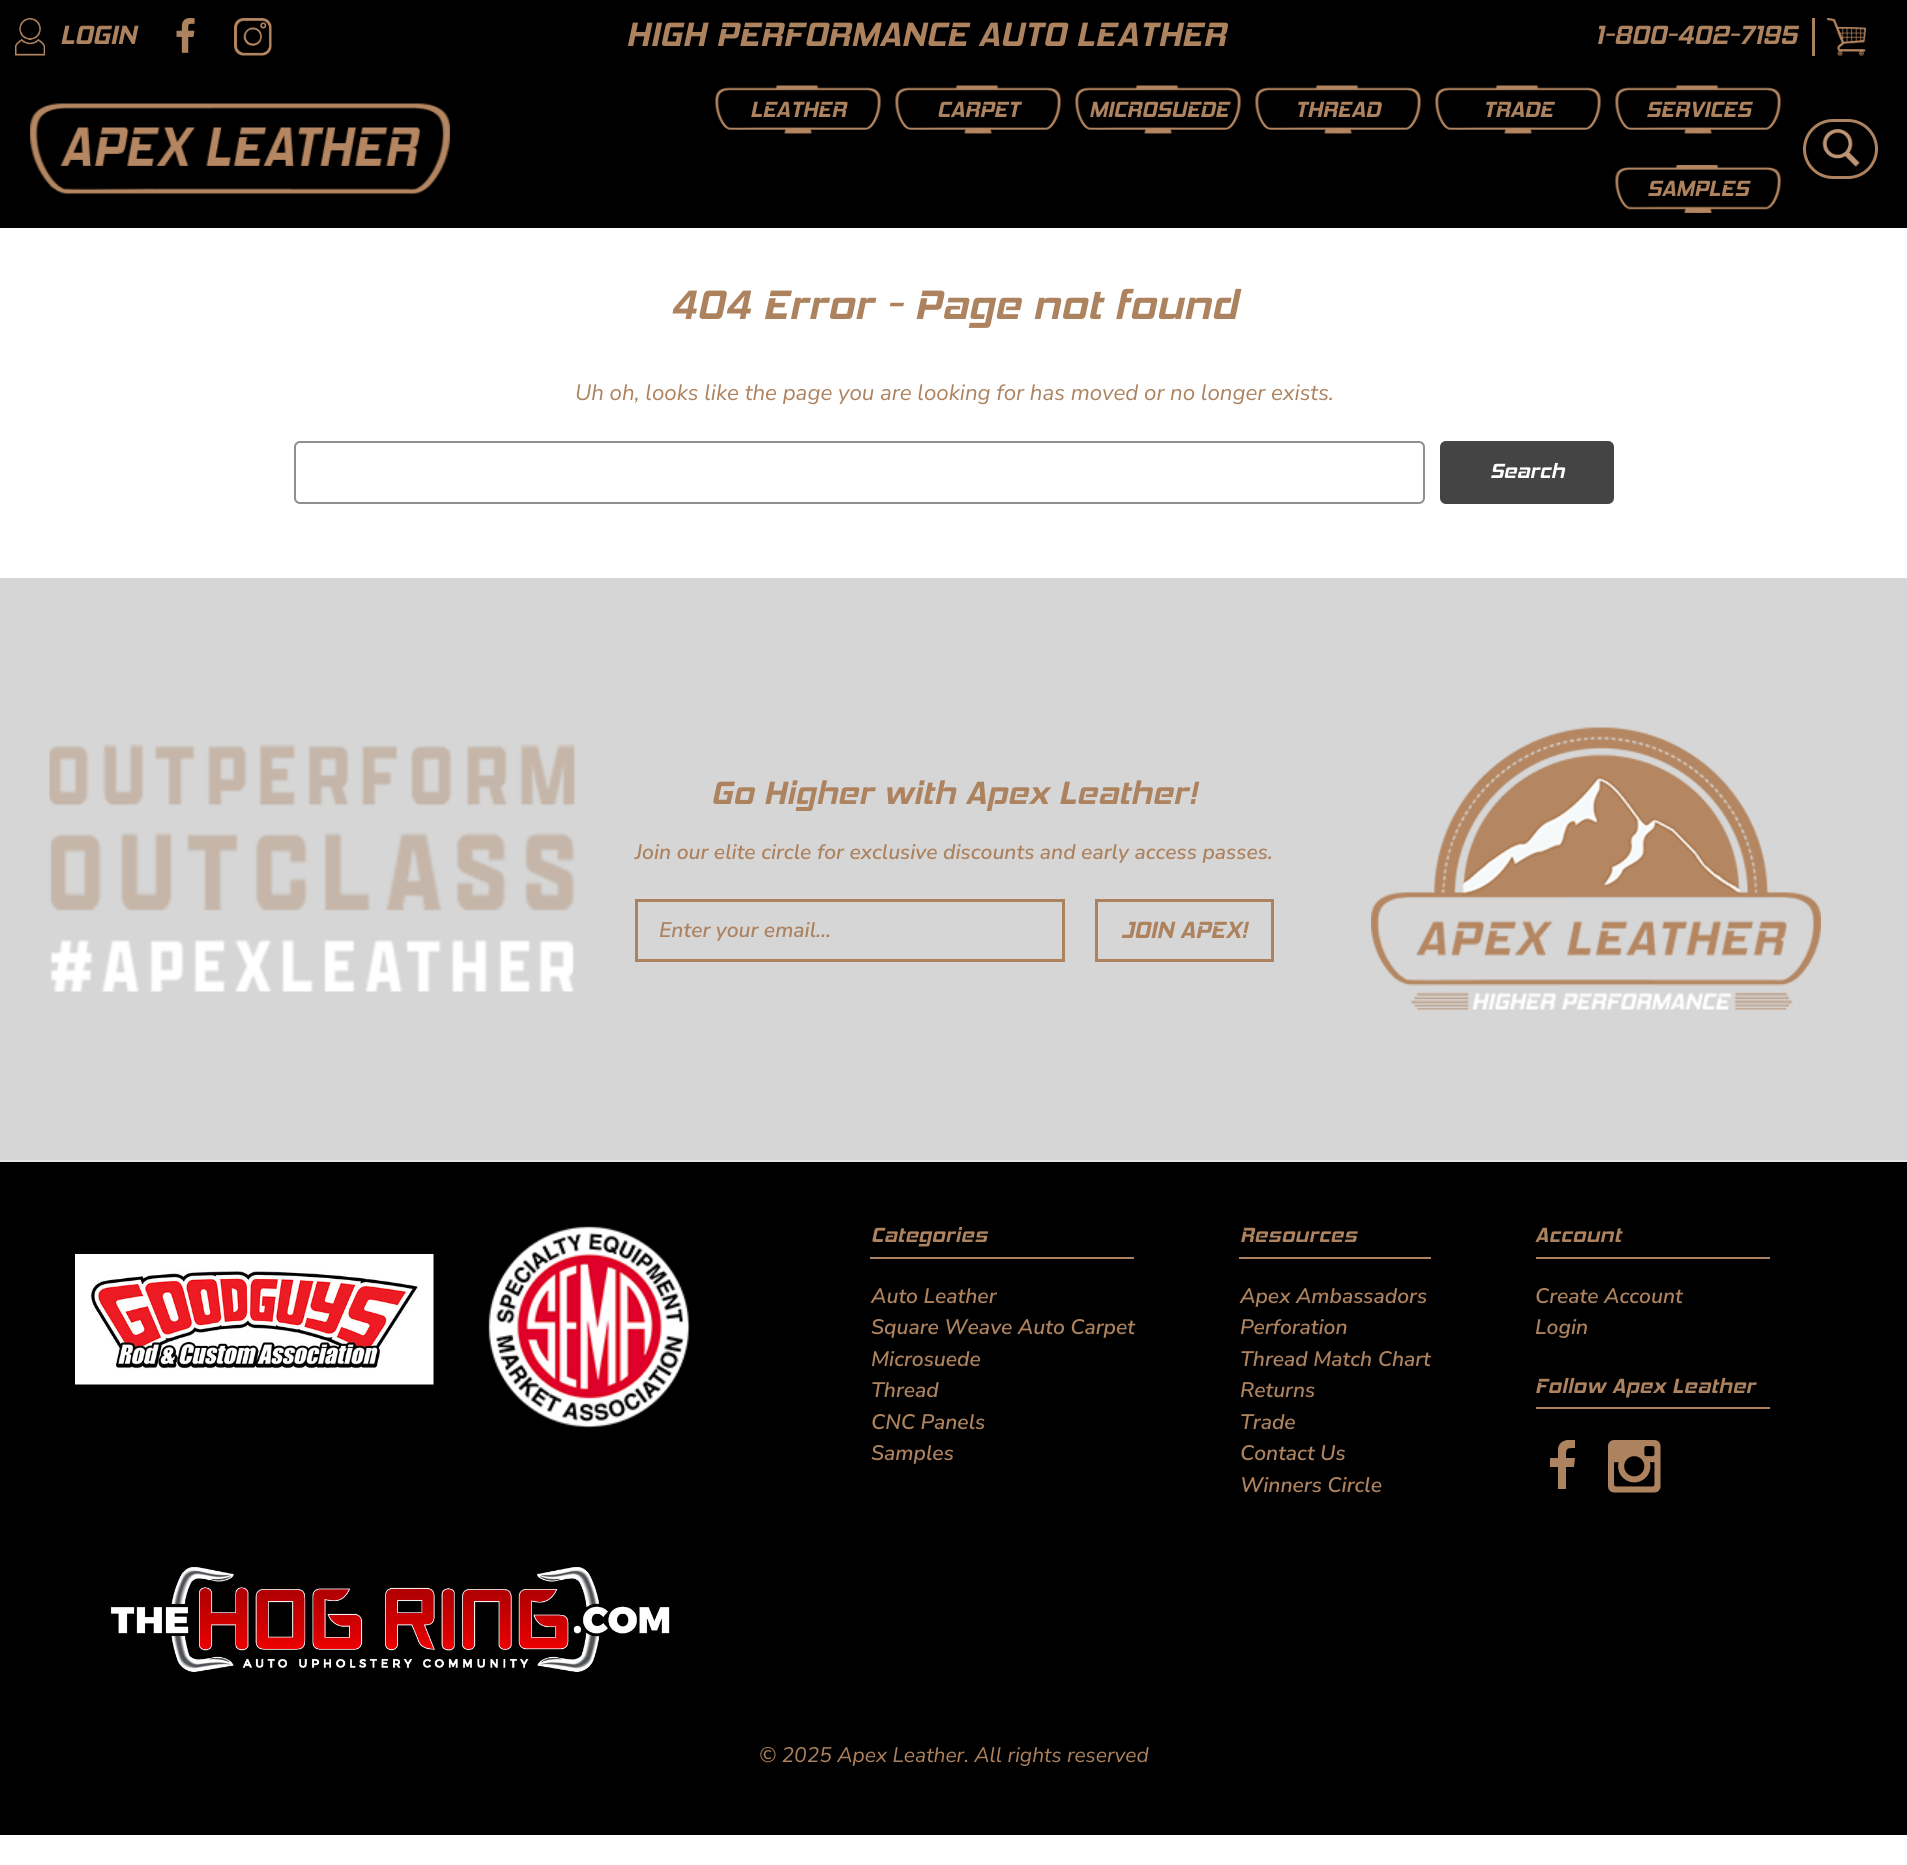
#include <cairo/cairo.h>
#include <math.h>
#include <stddef.h>


static void draw_spaced(cairo_t *cr, double x, double y, const char *s, double letter, double word) {
  cairo_move_to(cr, x, y);
  while (*s) {
    char ch[5] = {0};
    int n = 0;
    do ch[n++] = *s++; while ((*s & 0xC0) == 0x80);
    cairo_show_text(cr, ch);
    cairo_rel_move_to(cr, letter + word * (*ch == ' '), 0);
  }
}

static void rounded_rect(cairo_t *cr, double x, double y, double w, double h, double r) {
  cairo_new_sub_path(cr);
  cairo_arc(cr, x + w - r, y + h - r, r, 0, M_PI / 2);
  cairo_arc(cr, x + r, y + h - r, r, M_PI / 2, M_PI);
  cairo_arc(cr, x + r, y + r, r, M_PI, 1.5 * M_PI);
  cairo_arc(cr, x + w - r, y + r, r, 1.5 * M_PI, 2 * M_PI);
  cairo_close_path(cr);
}

static void draw_image(cairo_t *cr, const char *path, double x, double y, double w, double h) {
  cairo_surface_t *image = cairo_image_surface_create_from_png(path);
  cairo_save(cr);
  cairo_set_source_surface(cr, image, x, y);
  cairo_rectangle(cr, x, y, w, h);
  cairo_fill(cr);
  cairo_restore(cr);
  cairo_surface_destroy(image);
}

static void draw(cairo_t *cr) {
  cairo_set_source_rgb(cr, 1, 1, 1);
  cairo_paint(cr);
  cairo_set_source_rgb(cr, 0, 0, 0);
  cairo_rectangle(cr, 0, 0, 1907, 228);
  cairo_fill(cr);
  draw_image(cr, "images/1.png", 15, 18, 30, 38);
  draw_image(cr, "images/2.png", 176, 18, 19, 35);
  draw_image(cr, "images/3.png", 234, 18, 38, 38);
  cairo_set_source_rgb(cr, 173 / 255.0, 130 / 255.0, 94 / 255.0);
  cairo_rectangle(cr, 1812, 18, 3, 38);
  cairo_fill(cr);
  draw_image(cr, "images/4.png", 1827, 18, 39, 38);
  draw_image(cr, "images/5.png", 30, 103, 420, 91);
  draw_image(cr, "images/6.png", 715, 85, 166, 49);
  draw_image(cr, "images/6.png", 895, 85, 166, 49);
  draw_image(cr, "images/6.png", 1075, 85, 166, 49);
  draw_image(cr, "images/6.png", 1255, 85, 166, 49);
  draw_image(cr, "images/6.png", 1435, 85, 166, 49);
  draw_image(cr, "images/6.png", 1615, 85, 166, 49);
  draw_image(cr, "images/7.png", 1615, 165, 166, 48);
  rounded_rect(cr, 1804.5, 120.5, 72, 57, 28.5);
  cairo_set_line_width(cr, 3);
  cairo_stroke(cr);
  draw_image(cr, "images/8.png", 1822, 129, 38, 38);
  rounded_rect(cr, 295, 442, 1129, 61, 5);
  cairo_set_source_rgb(cr, 143 / 255.0, 143 / 255.0, 143 / 255.0);
  cairo_set_line_width(cr, 2);
  cairo_stroke(cr);
  cairo_set_source_rgb(cr, 68 / 255.0, 68 / 255.0, 68 / 255.0);
  rounded_rect(cr, 1441, 442, 172, 61, 5);
  cairo_fill_preserve(cr);
  cairo_stroke(cr);
  cairo_set_source_rgb(cr, 214 / 255.0, 214 / 255.0, 214 / 255.0);
  cairo_rectangle(cr, 0, 578, 1907, 582);
  cairo_fill(cr);
  draw_image(cr, "images/9.png", 49, 744, 526, 248);
  cairo_rectangle(cr, 636.5, 900.5, 427, 60);
  cairo_set_source_rgb(cr, 173 / 255.0, 130 / 255.0, 94 / 255.0);
  cairo_set_line_width(cr, 3);
  cairo_stroke(cr);
  cairo_rectangle(cr, 1096.5, 900.5, 176, 60);
  cairo_stroke(cr);
  draw_image(cr, "images/10.png", 1371, 727, 450, 283);
  cairo_set_source_rgb(cr, 0, 0, 0);
  cairo_rectangle(cr, 0, 1162, 1907, 673);
  cairo_fill(cr);
  cairo_set_source_rgb(cr, 229 / 255.0, 229 / 255.0, 229 / 255.0);
  cairo_rectangle(cr, 0, 1160, 1907, 2);
  cairo_fill(cr);
  draw_image(cr, "images/11.png", 75, 1254, 359, 131);
  draw_image(cr, "images/12.png", 488, 1226, 202, 202);
  cairo_set_source_rgb(cr, 173 / 255.0, 130 / 255.0, 94 / 255.0);
  cairo_rectangle(cr, 870, 1257, 264, 2);
  cairo_fill(cr);
  cairo_rectangle(cr, 1239, 1257, 192, 2);
  cairo_fill(cr);
  cairo_rectangle(cr, 1536, 1257, 234, 2);
  cairo_fill(cr);
  cairo_rectangle(cr, 1536, 1407, 234, 2);
  cairo_fill(cr);
  cairo_save(cr);
  cairo_rectangle(cr, 1536, 1440, 53, 53);
  cairo_clip(cr);
  cairo_new_path(cr);
  cairo_move_to(cr, 1575, 1440);
  cairo_line_to(cr, 1575, 1448);
  cairo_curve_to(cr, 1566, 1448, 1566, 1448, 1566, 1458);
  cairo_line_to(cr, 1575, 1458);
  cairo_line_to(cr, 1574, 1467);
  cairo_line_to(cr, 1566, 1467);
  cairo_line_to(cr, 1566, 1489);
  cairo_line_to(cr, 1558, 1489);
  cairo_line_to(cr, 1558, 1467);
  cairo_line_to(cr, 1550, 1467);
  cairo_line_to(cr, 1550, 1458);
  cairo_line_to(cr, 1558, 1458);
  cairo_line_to(cr, 1558, 1449);
  cairo_curve_to(cr, 1559, 1440, 1568, 1439, 1575, 1440);
  cairo_close_path(cr);
  cairo_fill(cr);
  cairo_restore(cr);
  draw_image(cr, "images/13.png", 1608, 1440, 53, 53);
  draw_image(cr, "images/14.png", 110, 1567, 560, 106);
  cairo_select_font_face(cr, "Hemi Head", CAIRO_FONT_SLANT_ITALIC, CAIRO_FONT_WEIGHT_BOLD);
  cairo_set_font_size(cr, 27);
  cairo_move_to(cr, 60, 44);
  cairo_show_text(cr, "LOGIN");
  cairo_set_font_size(cr, 34.5);
  draw_spaced(cr, 626, 46, "HIGH PERFORMANCE AUTO LEATHER", 0.4, 0);
  cairo_set_font_size(cr, 27);
  cairo_move_to(cr, 1595, 44);
  cairo_show_text(cr, "1-800-402-7195");
  cairo_set_font_size(cr, 22.5);
  cairo_move_to(cr, 750, 117);
  cairo_show_text(cr, "LEATHER");
  cairo_move_to(cr, 937, 117);
  cairo_show_text(cr, "CARPET");
  cairo_move_to(cr, 1089, 117);
  cairo_show_text(cr, "MICROSUEDE");
  cairo_move_to(cr, 1295, 117);
  cairo_show_text(cr, "THREAD");
  cairo_move_to(cr, 1483, 117);
  cairo_show_text(cr, "TRADE");
  cairo_move_to(cr, 1646, 117);
  cairo_show_text(cr, "SERVICES");
  cairo_move_to(cr, 1647, 196);
  cairo_show_text(cr, "SAMPLES");
  cairo_set_font_size(cr, 42);
  draw_spaced(cr, 670, 319, "404 Error - Page not found", 0.4, 0);
  cairo_select_font_face(cr, "Nunito Sans", CAIRO_FONT_SLANT_ITALIC, CAIRO_FONT_WEIGHT_NORMAL);
  cairo_set_font_size(cr, 22.25);
  cairo_move_to(cr, 575, 400);
  cairo_show_text(cr, "Uh oh, looks like the page you are looking for has moved or no longer exists.");
  cairo_select_font_face(cr, "Hemi Head", CAIRO_FONT_SLANT_ITALIC, CAIRO_FONT_WEIGHT_BOLD);
  cairo_set_font_size(cr, 21);
  cairo_set_source_rgb(cr, 1, 1, 1);
  cairo_move_to(cr, 1490, 478);
  cairo_show_text(cr, "Search");
  cairo_set_font_size(cr, 33);
  cairo_set_source_rgb(cr, 173 / 255.0, 130 / 255.0, 94 / 255.0);
  draw_spaced(cr, 711, 804, "Go Higher with Apex Leather!", 0.4, 0);
  cairo_select_font_face(cr, "Nunito Sans SemiBold", CAIRO_FONT_SLANT_ITALIC, CAIRO_FONT_WEIGHT_NORMAL);
  cairo_set_font_size(cr, 21);
  cairo_move_to(cr, 635, 859);
  cairo_show_text(cr, "Join our elite circle for exclusive discounts and early access passes.");
  cairo_move_to(cr, 659, 937);
  cairo_show_text(cr, "Enter your email...");
  cairo_select_font_face(cr, "Hemi Head", CAIRO_FONT_SLANT_ITALIC, CAIRO_FONT_WEIGHT_BOLD);
  cairo_set_font_size(cr, 24);
  cairo_move_to(cr, 1121, 938);
  cairo_show_text(cr, "JOIN APEX!");
  cairo_set_font_size(cr, 21);
  draw_spaced(cr, 871, 1242, "Categories", 0.4, 0);
  cairo_select_font_face(cr, "Nunito Sans SemiBold", CAIRO_FONT_SLANT_ITALIC, CAIRO_FONT_WEIGHT_NORMAL);
  cairo_move_to(cr, 871, 1303);
  cairo_show_text(cr, "Auto Leather");
  cairo_move_to(cr, 871, 1334);
  cairo_show_text(cr, "Square Weave Auto Carpet");
  cairo_move_to(cr, 871, 1366);
  cairo_show_text(cr, "Microsuede");
  cairo_move_to(cr, 871, 1397);
  cairo_show_text(cr, "Thread");
  cairo_move_to(cr, 871, 1429);
  cairo_show_text(cr, "CNC Panels");
  cairo_move_to(cr, 871, 1460);
  cairo_show_text(cr, "Samples");
  cairo_select_font_face(cr, "Hemi Head", CAIRO_FONT_SLANT_ITALIC, CAIRO_FONT_WEIGHT_BOLD);
  draw_spaced(cr, 1240, 1242, "Resources", 0.4, 0);
  cairo_select_font_face(cr, "Nunito Sans SemiBold", CAIRO_FONT_SLANT_ITALIC, CAIRO_FONT_WEIGHT_NORMAL);
  cairo_move_to(cr, 1240, 1303);
  cairo_show_text(cr, "Apex Ambassadors");
  cairo_move_to(cr, 1240, 1334);
  cairo_show_text(cr, "Perforation");
  cairo_move_to(cr, 1240, 1366);
  cairo_show_text(cr, "Thread Match Chart");
  cairo_move_to(cr, 1240, 1397);
  cairo_show_text(cr, "Returns");
  cairo_move_to(cr, 1240, 1429);
  cairo_show_text(cr, "Trade");
  cairo_move_to(cr, 1240, 1460);
  cairo_show_text(cr, "Contact Us");
  cairo_move_to(cr, 1240, 1492);
  cairo_show_text(cr, "Winners Circle");
  cairo_select_font_face(cr, "Hemi Head", CAIRO_FONT_SLANT_ITALIC, CAIRO_FONT_WEIGHT_BOLD);
  draw_spaced(cr, 1535, 1242, "Account", 0.4, 0);
  cairo_select_font_face(cr, "Nunito Sans SemiBold", CAIRO_FONT_SLANT_ITALIC, CAIRO_FONT_WEIGHT_NORMAL);
  cairo_move_to(cr, 1535, 1303);
  cairo_show_text(cr, "Create Account");
  cairo_move_to(cr, 1535, 1334);
  cairo_show_text(cr, "Login");
  cairo_select_font_face(cr, "Hemi Head", CAIRO_FONT_SLANT_ITALIC, CAIRO_FONT_WEIGHT_BOLD);
  draw_spaced(cr, 1535, 1393, "Follow Apex Leather", 0.4, 0);
  cairo_select_font_face(cr, "Nunito Sans", CAIRO_FONT_SLANT_ITALIC, CAIRO_FONT_WEIGHT_NORMAL);
  cairo_move_to(cr, 759, 1762);
  cairo_show_text(cr, "© 2025 Apex Leather. All rights reserved");
}

int main(void) {
  cairo_surface_t *surface = cairo_image_surface_create(CAIRO_FORMAT_RGB24, 1907, 1865);
  cairo_t *cr = cairo_create(surface);
  cairo_font_options_t *options = cairo_font_options_create();
  cairo_font_options_set_hint_metrics(options, CAIRO_HINT_METRICS_OFF);
  cairo_font_options_set_hint_style(options, CAIRO_HINT_STYLE_NONE);
  cairo_set_font_options(cr, options);
  cairo_set_miter_limit(cr, 4);
  draw(cr);
  cairo_surface_write_to_png(surface, "out.png");
  cairo_font_options_destroy(options);
  cairo_destroy(cr);
  cairo_surface_destroy(surface);
  return 0;
}
